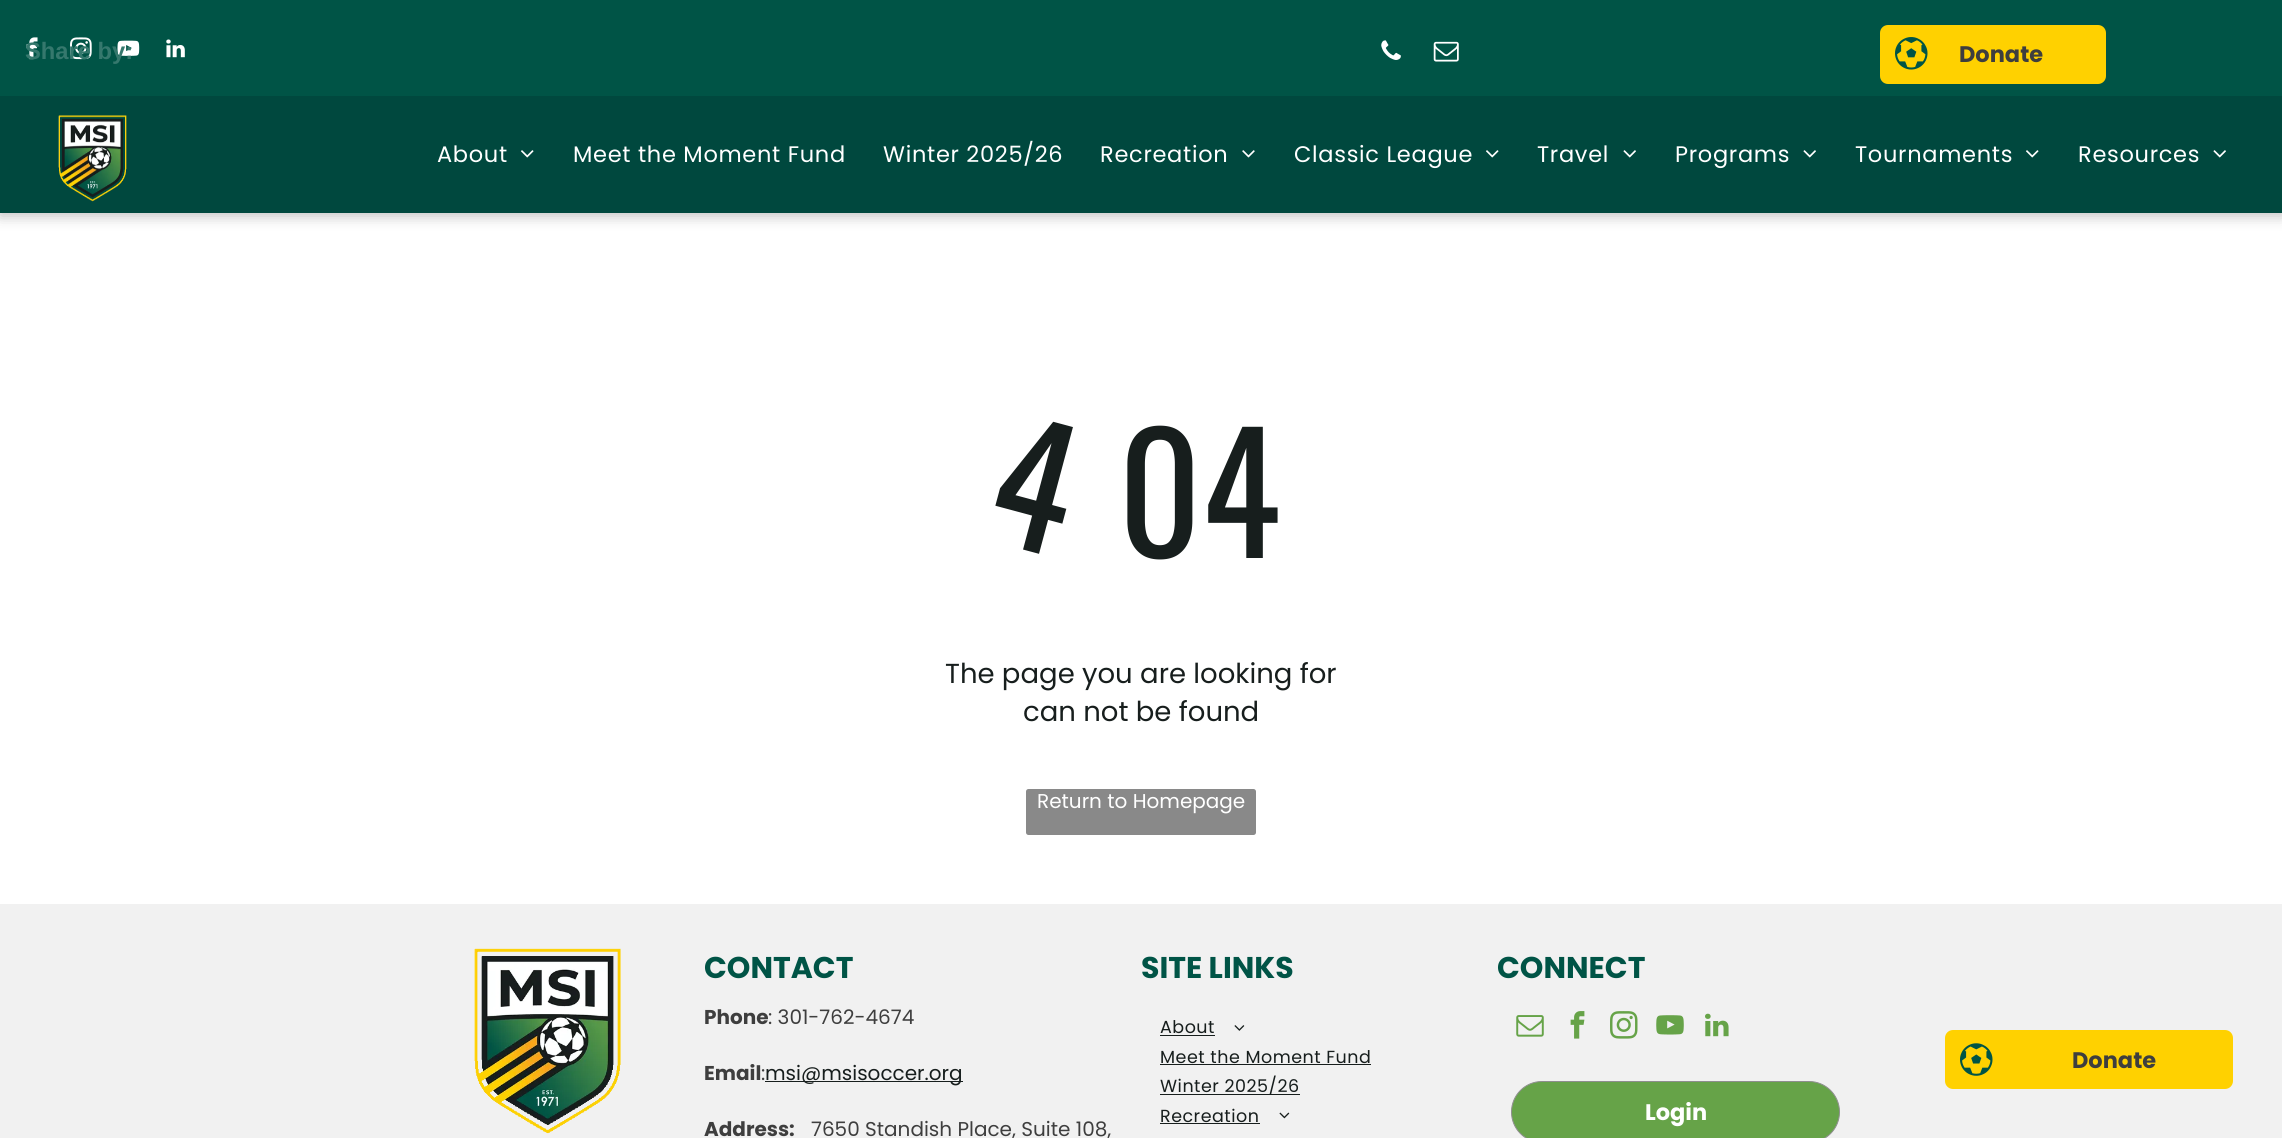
#include <cairo/cairo.h>
#include <math.h>
#include <stddef.h>


static void draw_spaced(cairo_t *cr, double x, double y, const char *s, double letter, double word) {
  cairo_move_to(cr, x, y);
  while (*s) {
    char ch[5] = {0};
    int n = 0;
    do ch[n++] = *s++; while ((*s & 0xC0) == 0x80);
    cairo_show_text(cr, ch);
    cairo_rel_move_to(cr, letter + word * (*ch == ' '), 0);
  }
}

static void rounded_rect(cairo_t *cr, double x, double y, double w, double h, double r) {
  cairo_new_sub_path(cr);
  cairo_arc(cr, x + w - r, y + h - r, r, 0, M_PI / 2);
  cairo_arc(cr, x + r, y + h - r, r, M_PI / 2, M_PI);
  cairo_arc(cr, x + r, y + r, r, M_PI, 1.5 * M_PI);
  cairo_arc(cr, x + w - r, y + r, r, 1.5 * M_PI, 2 * M_PI);
  cairo_close_path(cr);
}

static void draw_shadow(cairo_t *cr, double x, double y, double w, double h, double r, double blur, double alpha) {
  cairo_push_group_with_content(cr, CAIRO_CONTENT_ALPHA);
  cairo_set_operator(cr, CAIRO_OPERATOR_SOURCE);
  for (int i = 15; i >= -15 && fmin(w, h) + blur * i / 3 > 0; i -= 2) {
    double e = blur * i / 6;
    cairo_set_source_rgba(cr, 0, 0, 0, alpha * erfc((i - 1) / 8.5) / 2);
    rounded_rect(cr, x - e, y - e, w + 2 * e, h + 2 * e, fmax(0, fmin(r + e + blur * .6, fmin(w, h) / 2 + e)));
    cairo_fill(cr);
  }
  cairo_pattern_t *soft = cairo_pop_group(cr);
  cairo_mask(cr, soft);
  cairo_pattern_destroy(soft);
}

static void draw_image(cairo_t *cr, const char *path, double x, double y, double w, double h) {
  cairo_surface_t *image = cairo_image_surface_create_from_png(path);
  cairo_save(cr);
  cairo_set_source_surface(cr, image, x, y);
  cairo_rectangle(cr, x, y, w, h);
  cairo_fill(cr);
  cairo_restore(cr);
  cairo_surface_destroy(image);
}

static void draw(cairo_t *cr) {
  cairo_set_source_rgb(cr, 1, 1, 1);
  cairo_paint(cr);
  cairo_set_source_rgb(cr, 0, 0, 0);
  draw_shadow(cr, 0, 4, 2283, 212, 0, 7, 0.25);
  cairo_set_source_rgb(cr, 0, 84 / 255.0, 70 / 255.0);
  cairo_rectangle(cr, 0, 0, 2282, 96);
  cairo_fill(cr);
  draw_image(cr, "images/1.png", 26, 37, 12, 23);
  draw_image(cr, "images/2.png", 70, 37, 22, 23);
  draw_image(cr, "images/3.png", 117, 40, 23, 16);
  draw_image(cr, "images/4.png", 166, 39, 19, 19);
  draw_image(cr, "images/5.png", 1381, 40, 20, 20);
  draw_image(cr, "images/6.png", 1433, 41, 26, 21);
  cairo_set_source_rgb(cr, 1, 209 / 255.0, 0);
  rounded_rect(cr, 1880, 25, 226, 59, 8);
  cairo_fill(cr);
  draw_image(cr, "images/7.png", 1895, 37, 33, 33);
  cairo_set_source_rgb(cr, 0, 72 / 255.0, 62 / 255.0);
  cairo_rectangle(cr, 0, 96, 2282, 117);
  cairo_fill(cr);
  draw_image(cr, "images/8.png", 58, 115, 69, 87);
  draw_image(cr, "images/9.png", 521, 150, 13, 8);
  draw_image(cr, "images/10.png", 1242, 150, 13, 8);
  draw_image(cr, "images/9.png", 1486, 150, 13, 8);
  draw_image(cr, "images/11.png", 1623, 150, 13, 8);
  draw_image(cr, "images/11.png", 1803, 150, 13, 8);
  draw_image(cr, "images/9.png", 2026, 150, 13, 8);
  draw_image(cr, "images/11.png", 2213, 150, 13, 8);
  cairo_set_source_rgb(cr, 137 / 255.0, 137 / 255.0, 137 / 255.0);
  rounded_rect(cr, 1026, 789, 230, 46, 2.5);
  cairo_fill(cr);
  cairo_set_source_rgb(cr, 241 / 255.0, 241 / 255.0, 241 / 255.0);
  cairo_rectangle(cr, 0, 904, 2282, 234);
  cairo_fill(cr);
  draw_image(cr, "images/12.png", 474, 948, 147, 186);
  cairo_set_source_rgb(cr, 23 / 255.0, 30 / 255.0, 29 / 255.0);
  cairo_rectangle(cr, 765, 1081, 198, 1);
  cairo_fill(cr);
  cairo_rectangle(cr, 1160, 1035, 55, 1);
  cairo_fill(cr);
  draw_image(cr, "images/13.png", 1234, 1025, 11, 6);
  cairo_rectangle(cr, 1160, 1064, 211, 1);
  cairo_fill(cr);
  cairo_rectangle(cr, 1160, 1094, 140, 1);
  cairo_fill(cr);
  cairo_rectangle(cr, 1160, 1123, 100, 1);
  cairo_fill(cr);
  draw_image(cr, "images/14.png", 1279, 1112, 11, 7);
  draw_image(cr, "images/15.png", 1516, 1015, 28, 22);
  draw_image(cr, "images/16.png", 1570, 1011, 15, 28);
  draw_image(cr, "images/17.png", 1610, 1011, 28, 28);
  draw_image(cr, "images/18.png", 1656, 1015, 28, 20);
  draw_image(cr, "images/19.png", 1705, 1013, 24, 24);
  cairo_set_source_rgb(cr, 102 / 255.0, 163 / 255.0, 72 / 255.0);
  rounded_rect(cr, 1511.5, 1081.5, 328, 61, 30.5);
  cairo_fill_preserve(cr);
  cairo_set_source_rgb(cr, 142 / 255.0, 142 / 255.0, 142 / 255.0);
  cairo_set_line_width(cr, 1);
  cairo_stroke(cr);
  cairo_set_source_rgb(cr, 1, 209 / 255.0, 0);
  rounded_rect(cr, 1945, 1030, 288, 59, 8);
  cairo_fill(cr);
  draw_image(cr, "images/20.png", 1960, 1043, 33, 33);
  cairo_select_font_face(cr, "Liberation Sans", CAIRO_FONT_SLANT_NORMAL, CAIRO_FONT_WEIGHT_BOLD);
  cairo_set_font_size(cr, 23.75);
  cairo_set_source_rgb(cr, 53 / 255.0, 120 / 255.0, 109 / 255.0);
  cairo_move_to(cr, 25, 59);
  cairo_show_text(cr, "Share by:");
  cairo_select_font_face(cr, "Poppins", CAIRO_FONT_SLANT_NORMAL, CAIRO_FONT_WEIGHT_BOLD);
  cairo_set_font_size(cr, 22.5);
  cairo_set_source_rgb(cr, 62 / 255.0, 62 / 255.0, 62 / 255.0);
  cairo_move_to(cr, 1959, 62);
  cairo_show_text(cr, "Donate");
  cairo_select_font_face(cr, "Poppins", CAIRO_FONT_SLANT_NORMAL, CAIRO_FONT_WEIGHT_NORMAL);
  cairo_set_source_rgb(cr, 1, 1, 1);
  draw_spaced(cr, 437, 162, "About", 0.7, 0);
  draw_spaced(cr, 573, 162, "Meet the Moment Fund", 0.7, 0);
  draw_spaced(cr, 883, 162, "Winter 2025/26", 0.7, 0);
  draw_spaced(cr, 1100, 162, "Recreation", 0.7, 0);
  draw_spaced(cr, 1294, 162, "Classic League", 0.7, 0);
  draw_spaced(cr, 1537, 162, "Travel", 0.7, 0);
  draw_spaced(cr, 1675, 162, "Programs", 0.7, 0);
  draw_spaced(cr, 1855, 162, "Tournaments", 0.7, 0);
  draw_spaced(cr, 2078, 162, "Resources", 0.7, 0);
  cairo_select_font_face(cr, "Oswald", CAIRO_FONT_SLANT_NORMAL, CAIRO_FONT_WEIGHT_NORMAL);
  cairo_set_font_size(cr, 162);
  cairo_set_source_rgb(cr, 23 / 255.0, 30 / 255.0, 29 / 255.0);
  cairo_save(cr);
  cairo_translate(cr, 980, 538);
  cairo_rotate(cr, 15 * M_PI / 180);
  cairo_move_to(cr, 0, 0);
  cairo_show_text(cr, "4");
  cairo_restore(cr);
  cairo_move_to(cr, 1118, 558);
  cairo_show_text(cr, "04");
  cairo_select_font_face(cr, "Poppins", CAIRO_FONT_SLANT_NORMAL, CAIRO_FONT_WEIGHT_NORMAL);
  cairo_set_font_size(cr, 27.5);
  cairo_move_to(cr, 945, 683);
  cairo_show_text(cr, "The page you are looking for");
  cairo_move_to(cr, 1023, 721);
  cairo_show_text(cr, "can not be found");
  cairo_set_font_size(cr, 20);
  cairo_set_source_rgb(cr, 1, 1, 1);
  cairo_move_to(cr, 1037, 808);
  cairo_show_text(cr, "Return to Homepage");
  cairo_select_font_face(cr, "Poppins", CAIRO_FONT_SLANT_NORMAL, CAIRO_FONT_WEIGHT_BOLD);
  cairo_set_font_size(cr, 30);
  cairo_set_source_rgb(cr, 0, 84 / 255.0, 70 / 255.0);
  cairo_move_to(cr, 704, 978);
  cairo_show_text(cr, "CONTACT");
  cairo_set_font_size(cr, 20);
  cairo_set_source_rgb(cr, 62 / 255.0, 62 / 255.0, 62 / 255.0);
  cairo_move_to(cr, 704, 1024);
  cairo_show_text(cr, "Phone");
  cairo_select_font_face(cr, "Poppins", CAIRO_FONT_SLANT_NORMAL, CAIRO_FONT_WEIGHT_NORMAL);
  cairo_move_to(cr, 768, 1024);
  cairo_show_text(cr, ": 301-762-4674");
  cairo_select_font_face(cr, "Poppins", CAIRO_FONT_SLANT_NORMAL, CAIRO_FONT_WEIGHT_BOLD);
  cairo_move_to(cr, 704, 1080);
  cairo_show_text(cr, "Email");
  cairo_select_font_face(cr, "Poppins", CAIRO_FONT_SLANT_NORMAL, CAIRO_FONT_WEIGHT_NORMAL);
  cairo_move_to(cr, 761, 1080);
  cairo_show_text(cr, ":");
  cairo_set_source_rgb(cr, 23 / 255.0, 30 / 255.0, 29 / 255.0);
  cairo_move_to(cr, 765, 1080);
  cairo_show_text(cr, "msi@msisoccer.org");
  cairo_select_font_face(cr, "Poppins", CAIRO_FONT_SLANT_NORMAL, CAIRO_FONT_WEIGHT_BOLD);
  cairo_set_source_rgb(cr, 62 / 255.0, 62 / 255.0, 62 / 255.0);
  cairo_move_to(cr, 704, 1136);
  cairo_show_text(cr, "Address:");
  cairo_select_font_face(cr, "Poppins", CAIRO_FONT_SLANT_NORMAL, CAIRO_FONT_WEIGHT_NORMAL);
  cairo_move_to(cr, 811, 1136);
  cairo_show_text(cr, "7650 Standish Place, Suite 108,");
  cairo_select_font_face(cr, "Poppins", CAIRO_FONT_SLANT_NORMAL, CAIRO_FONT_WEIGHT_BOLD);
  cairo_set_font_size(cr, 30);
  cairo_set_source_rgb(cr, 0, 84 / 255.0, 70 / 255.0);
  cairo_move_to(cr, 1141, 978);
  cairo_show_text(cr, "SITE LINKS");
  cairo_select_font_face(cr, "Poppins", CAIRO_FONT_SLANT_NORMAL, CAIRO_FONT_WEIGHT_NORMAL);
  cairo_set_font_size(cr, 17.5);
  cairo_set_source_rgb(cr, 23 / 255.0, 30 / 255.0, 29 / 255.0);
  draw_spaced(cr, 1160, 1033, "About", 0.5, 0);
  draw_spaced(cr, 1160, 1063, "Meet the Moment Fund", 0.5, 0);
  draw_spaced(cr, 1160, 1092, "Winter 2025/26", 0.5, 0);
  draw_spaced(cr, 1160, 1122, "Recreation", 0.5, 0);
  cairo_select_font_face(cr, "Poppins", CAIRO_FONT_SLANT_NORMAL, CAIRO_FONT_WEIGHT_BOLD);
  cairo_set_font_size(cr, 30);
  cairo_set_source_rgb(cr, 0, 84 / 255.0, 70 / 255.0);
  cairo_move_to(cr, 1497, 978);
  cairo_show_text(cr, "CONNECT");
  cairo_set_font_size(cr, 22.5);
  cairo_set_source_rgb(cr, 1, 1, 1);
  cairo_move_to(cr, 1645, 1120);
  cairo_show_text(cr, "Login");
  cairo_set_source_rgb(cr, 62 / 255.0, 62 / 255.0, 62 / 255.0);
  cairo_move_to(cr, 2072, 1068);
  cairo_show_text(cr, "Donate");
}

int main(void) {
  cairo_surface_t *surface = cairo_image_surface_create(CAIRO_FORMAT_RGB24, 2282, 1138);
  cairo_t *cr = cairo_create(surface);
  cairo_font_options_t *options = cairo_font_options_create();
  cairo_font_options_set_hint_metrics(options, CAIRO_HINT_METRICS_OFF);
  cairo_font_options_set_hint_style(options, CAIRO_HINT_STYLE_NONE);
  cairo_set_font_options(cr, options);
  cairo_set_miter_limit(cr, 4);
  draw(cr);
  cairo_surface_write_to_png(surface, "out.png");
  cairo_font_options_destroy(options);
  cairo_destroy(cr);
  cairo_surface_destroy(surface);
  return 0;
}
